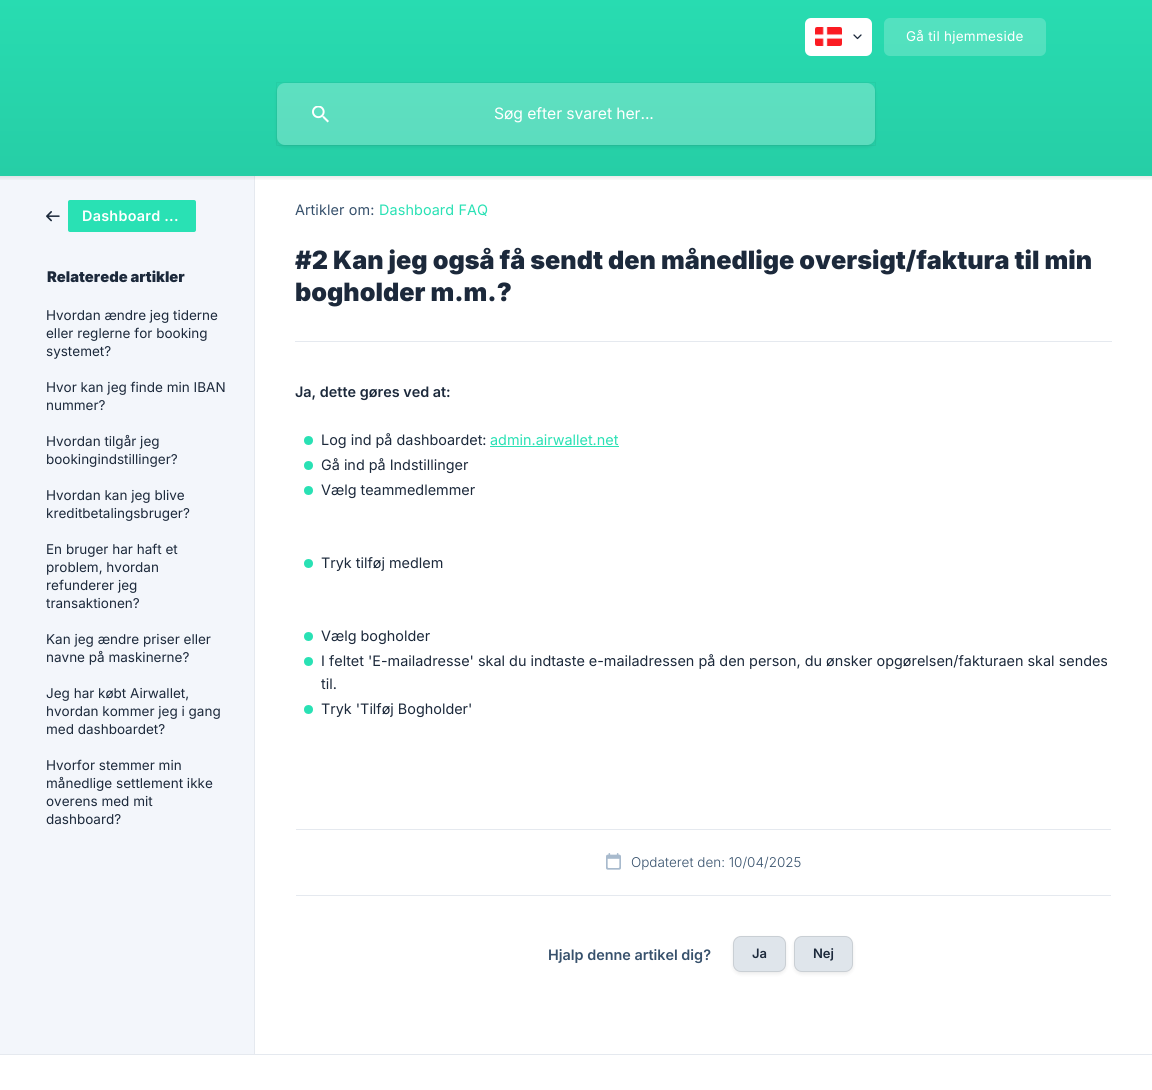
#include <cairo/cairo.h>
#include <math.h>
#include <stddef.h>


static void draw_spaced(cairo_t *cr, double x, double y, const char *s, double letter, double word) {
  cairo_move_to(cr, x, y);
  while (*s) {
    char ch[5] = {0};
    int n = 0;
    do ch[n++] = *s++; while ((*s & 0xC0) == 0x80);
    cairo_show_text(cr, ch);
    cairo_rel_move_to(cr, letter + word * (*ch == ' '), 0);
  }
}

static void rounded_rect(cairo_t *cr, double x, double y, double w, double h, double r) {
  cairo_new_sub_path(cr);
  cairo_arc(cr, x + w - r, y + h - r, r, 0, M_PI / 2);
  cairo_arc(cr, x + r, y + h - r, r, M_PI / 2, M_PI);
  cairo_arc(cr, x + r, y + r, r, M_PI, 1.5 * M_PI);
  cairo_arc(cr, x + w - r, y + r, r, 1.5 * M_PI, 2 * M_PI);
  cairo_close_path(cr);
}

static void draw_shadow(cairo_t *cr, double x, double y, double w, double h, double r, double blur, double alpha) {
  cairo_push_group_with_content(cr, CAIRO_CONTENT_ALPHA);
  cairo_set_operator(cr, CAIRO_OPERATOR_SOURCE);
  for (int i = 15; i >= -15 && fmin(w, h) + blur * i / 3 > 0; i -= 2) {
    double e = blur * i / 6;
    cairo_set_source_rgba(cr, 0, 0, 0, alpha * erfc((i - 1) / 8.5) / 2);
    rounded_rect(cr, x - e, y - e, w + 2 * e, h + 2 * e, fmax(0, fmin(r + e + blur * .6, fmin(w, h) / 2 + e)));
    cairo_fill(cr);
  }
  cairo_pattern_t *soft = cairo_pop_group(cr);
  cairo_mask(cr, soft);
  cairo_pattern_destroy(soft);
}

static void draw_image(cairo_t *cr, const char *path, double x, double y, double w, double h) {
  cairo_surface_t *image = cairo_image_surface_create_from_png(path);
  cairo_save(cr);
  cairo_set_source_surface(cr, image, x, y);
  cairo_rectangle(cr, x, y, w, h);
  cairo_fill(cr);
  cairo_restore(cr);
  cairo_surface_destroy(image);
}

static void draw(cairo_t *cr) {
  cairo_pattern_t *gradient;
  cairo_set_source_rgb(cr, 1, 1, 1);
  cairo_paint(cr);
  gradient = cairo_pattern_create_linear(576, 0, 576, 176);
  cairo_pattern_add_color_stop_rgba(gradient, 0, 40 / 255.0, 220 / 255.0, 177 / 255.0, 1);
  cairo_pattern_add_color_stop_rgba(gradient, 0.99, 38 / 255.0, 206 / 255.0, 166 / 255.0, 1);
  cairo_set_source(cr, gradient);
  cairo_pattern_destroy(gradient);
  cairo_rectangle(cr, 0, 0, 1152, 176);
  cairo_fill(cr);
  cairo_set_source_rgb(cr, 1, 1, 1);
  rounded_rect(cr, 805, 18, 67, 38, 6);
  cairo_fill(cr);
  draw_image(cr, "images/1.png", 815, 27, 27, 19);
  cairo_new_path(cr);
  cairo_move_to(cr, 854, 35);
  cairo_line_to(cr, 857.5, 38.5);
  cairo_line_to(cr, 861, 35);
  cairo_set_source_rgb(cr, 28 / 255.0, 41 / 255.0, 59 / 255.0);
  cairo_set_line_width(cr, 1.3);
  cairo_set_line_cap(cr, CAIRO_LINE_CAP_ROUND);
  cairo_set_line_join(cr, CAIRO_LINE_JOIN_ROUND);
  cairo_stroke(cr);
  cairo_set_source_rgba(cr, 1, 1, 1, 0.2);
  rounded_rect(cr, 884, 18, 162, 38, 6);
  cairo_fill(cr);
  cairo_rectangle(cr, 276.5, 82.5, 599, 63);
  cairo_set_source_rgba(cr, 0, 0, 0, 0.04);
  cairo_set_line_width(cr, 1);
  cairo_set_line_cap(cr, CAIRO_LINE_CAP_BUTT);
  cairo_set_line_join(cr, CAIRO_LINE_JOIN_MITER);
  cairo_stroke(cr);
  cairo_save(cr);
  cairo_set_fill_rule(cr, CAIRO_FILL_RULE_EVEN_ODD);
  cairo_new_path(cr);
  cairo_move_to(cr, 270, 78);
  cairo_line_to(cr, 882, 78);
  cairo_line_to(cr, 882, 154);
  cairo_line_to(cr, 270, 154);
  cairo_close_path(cr);
  cairo_move_to(cr, 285, 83);
  cairo_line_to(cr, 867, 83);
  cairo_curve_to(cr, 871.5, 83, 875, 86.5, 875, 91);
  cairo_line_to(cr, 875, 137);
  cairo_curve_to(cr, 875, 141.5, 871.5, 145, 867, 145);
  cairo_line_to(cr, 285, 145);
  cairo_curve_to(cr, 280.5, 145, 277, 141.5, 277, 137);
  cairo_line_to(cr, 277, 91);
  cairo_curve_to(cr, 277, 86.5, 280.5, 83, 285, 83);
  cairo_close_path(cr);
  cairo_clip(cr);
  cairo_set_source_rgb(cr, 0, 0, 0);
  draw_shadow(cr, 277, 85, 598, 62, 8, 2, 0.08);
  cairo_restore(cr);
  cairo_set_source_rgba(cr, 1, 1, 1, 0.25);
  rounded_rect(cr, 277, 83, 598, 62, 8);
  cairo_fill(cr);
  draw_image(cr, "images/2.png", 312, 106, 17, 17);
  cairo_set_source_rgb(cr, 243 / 255.0, 246 / 255.0, 251 / 255.0);
  cairo_rectangle(cr, 0, 176, 254, 878);
  cairo_fill(cr);
  cairo_set_source_rgb(cr, 229 / 255.0, 233 / 255.0, 239 / 255.0);
  cairo_rectangle(cr, 254, 176, 1, 878);
  cairo_fill(cr);
  gradient = cairo_pattern_create_linear(576, 181, 576, 176);
  cairo_pattern_add_color_stop_rgba(gradient, 0, 0, 0, 0, 0);
  cairo_pattern_add_color_stop_rgba(gradient, 1, 0, 0, 0, 0.08);
  cairo_set_source(cr, gradient);
  cairo_pattern_destroy(gradient);
  cairo_rectangle(cr, 0, 176, 1152, 4);
  cairo_fill(cr);
  draw_image(cr, "images/3.png", 46, 211, 14, 11);
  cairo_set_source_rgb(cr, 41 / 255.0, 225 / 255.0, 180 / 255.0);
  rounded_rect(cr, 68, 200, 128, 32, 2);
  cairo_fill(cr);
  cairo_set_source_rgb(cr, 229 / 255.0, 233 / 255.0, 239 / 255.0);
  cairo_rectangle(cr, 295, 341, 817, 1);
  cairo_fill(cr);
  cairo_set_source_rgb(cr, 41 / 255.0, 225 / 255.0, 180 / 255.0);
  cairo_arc(cr, 308.5, 440.5, 4.5, 0, 2 * M_PI);
  cairo_fill(cr);
  cairo_rectangle(cr, 490, 446, 129, 1);
  cairo_fill(cr);
  cairo_arc(cr, 308.5, 465.5, 4.5, 0, 2 * M_PI);
  cairo_fill(cr);
  cairo_arc(cr, 308.5, 490.5, 4.5, 0, 2 * M_PI);
  cairo_fill(cr);
  cairo_arc(cr, 308.5, 563.5, 4.5, 0, 2 * M_PI);
  cairo_fill(cr);
  cairo_arc(cr, 308.5, 636.5, 4.5, 0, 2 * M_PI);
  cairo_fill(cr);
  cairo_arc(cr, 308.5, 661.5, 4.5, 0, 2 * M_PI);
  cairo_fill(cr);
  cairo_arc(cr, 308.5, 709.5, 4.5, 0, 2 * M_PI);
  cairo_fill(cr);
  cairo_set_source_rgb(cr, 229 / 255.0, 233 / 255.0, 239 / 255.0);
  cairo_rectangle(cr, 296, 829, 815, 1);
  cairo_fill(cr);
  draw_image(cr, "images/4.png", 606, 853, 15, 17);
  cairo_rectangle(cr, 296, 895, 815, 1);
  cairo_fill(cr);
  cairo_set_source_rgb(cr, 0, 0, 0);
  draw_shadow(cr, 733, 938, 53, 36, 8, 2, 0.08);
  cairo_set_source_rgb(cr, 223 / 255.0, 229 / 255.0, 235 / 255.0);
  rounded_rect(cr, 733, 936, 53, 36, 8);
  cairo_fill(cr);
  rounded_rect(cr, 733.5, 936.5, 52, 35, 7.5);
  cairo_set_source_rgba(cr, 0, 0, 0, 0.1);
  cairo_stroke(cr);
  cairo_set_source_rgb(cr, 0, 0, 0);
  draw_shadow(cr, 794, 938, 59, 36, 8, 2, 0.08);
  cairo_set_source_rgb(cr, 223 / 255.0, 229 / 255.0, 235 / 255.0);
  rounded_rect(cr, 794, 936, 59, 36, 8);
  cairo_fill(cr);
  rounded_rect(cr, 794.5, 936.5, 58, 35, 7.5);
  cairo_set_source_rgba(cr, 0, 0, 0, 0.1);
  cairo_stroke(cr);
  cairo_set_source_rgb(cr, 229 / 255.0, 233 / 255.0, 239 / 255.0);
  cairo_rectangle(cr, 0, 1054, 1152, 1);
  cairo_fill(cr);
  cairo_select_font_face(cr, "Inter", CAIRO_FONT_SLANT_NORMAL, CAIRO_FONT_WEIGHT_NORMAL);
  cairo_set_font_size(cr, 13.5);
  cairo_set_source_rgb(cr, 1, 1, 1);
  draw_spaced(cr, 906, 41, "Gå til hjemmeside", 0.25, 0);
  cairo_set_font_size(cr, 15.75);
  draw_spaced(cr, 494, 119, "Søg efter svaret her...", -0.1, 0);
  cairo_select_font_face(cr, "Inter SemiBold", CAIRO_FONT_SLANT_NORMAL, CAIRO_FONT_WEIGHT_NORMAL);
  cairo_set_font_size(cr, 14.4);
  draw_spaced(cr, 82, 221, "Dashboard ...", 0.25, 0);
  cairo_select_font_face(cr, "Inter Black", CAIRO_FONT_SLANT_NORMAL, CAIRO_FONT_WEIGHT_NORMAL);
  cairo_set_font_size(cr, 14.75);
  cairo_set_source_rgb(cr, 28 / 255.0, 41 / 255.0, 59 / 255.0);
  cairo_move_to(cr, 47, 282);
  cairo_show_text(cr, "Relaterede artikler");
  cairo_select_font_face(cr, "Inter", CAIRO_FONT_SLANT_NORMAL, CAIRO_FONT_WEIGHT_NORMAL);
  cairo_set_font_size(cr, 13.5);
  cairo_move_to(cr, 46, 320);
  cairo_show_text(cr, "Hvordan ændre jeg tiderne");
  cairo_move_to(cr, 46, 338);
  cairo_show_text(cr, "eller reglerne for booking");
  cairo_move_to(cr, 46, 356);
  cairo_show_text(cr, "systemet?");
  cairo_move_to(cr, 46, 392);
  cairo_show_text(cr, "Hvor kan jeg finde min IBAN");
  cairo_move_to(cr, 46, 410);
  cairo_show_text(cr, "nummer?");
  cairo_move_to(cr, 46, 446);
  cairo_show_text(cr, "Hvordan tilgår jeg");
  cairo_move_to(cr, 46, 464);
  cairo_show_text(cr, "bookingindstillinger?");
  cairo_move_to(cr, 46, 500);
  cairo_show_text(cr, "Hvordan kan jeg blive");
  cairo_move_to(cr, 46, 518);
  cairo_show_text(cr, "kreditbetalingsbruger?");
  cairo_move_to(cr, 46, 554);
  cairo_show_text(cr, "En bruger har haft et");
  cairo_move_to(cr, 46, 572);
  cairo_show_text(cr, "problem, hvordan");
  cairo_move_to(cr, 46, 590);
  cairo_show_text(cr, "refunderer jeg");
  cairo_move_to(cr, 46, 608);
  cairo_show_text(cr, "transaktionen?");
  cairo_move_to(cr, 46, 644);
  cairo_show_text(cr, "Kan jeg ændre priser eller");
  cairo_move_to(cr, 46, 662);
  cairo_show_text(cr, "navne på maskinerne?");
  cairo_move_to(cr, 46, 698);
  cairo_show_text(cr, "Jeg har købt Airwallet,");
  cairo_move_to(cr, 46, 716);
  cairo_show_text(cr, "hvordan kommer jeg i gang");
  cairo_move_to(cr, 46, 734);
  cairo_show_text(cr, "med dashboardet?");
  cairo_move_to(cr, 46, 770);
  cairo_show_text(cr, "Hvorfor stemmer min");
  cairo_move_to(cr, 46, 788);
  cairo_show_text(cr, "månedlige settlement ikke");
  cairo_move_to(cr, 46, 806);
  cairo_show_text(cr, "overens med mit");
  cairo_move_to(cr, 46, 824);
  cairo_show_text(cr, "dashboard?");
  cairo_set_font_size(cr, 14.4);
  cairo_set_source_rgb(cr, 55 / 255.0, 81 / 255.0, 108 / 255.0);
  draw_spaced(cr, 295, 215, "Artikler om:", 0.1, 0);
  cairo_set_source_rgb(cr, 41 / 255.0, 225 / 255.0, 180 / 255.0);
  draw_spaced(cr, 379, 215, "Dashboard FAQ", 0.1, 0);
  cairo_select_font_face(cr, "Inter Black", CAIRO_FONT_SLANT_NORMAL, CAIRO_FONT_WEIGHT_NORMAL);
  cairo_set_font_size(cr, 25.2);
  cairo_set_source_rgb(cr, 28 / 255.0, 41 / 255.0, 59 / 255.0);
  cairo_move_to(cr, 295, 269);
  cairo_show_text(cr, "#2 Kan jeg også få sendt den månedlige oversigt/faktura til min");
  cairo_move_to(cr, 295, 301);
  cairo_show_text(cr, "bogholder m.m.?");
  cairo_select_font_face(cr, "Inter SemiBold", CAIRO_FONT_SLANT_NORMAL, CAIRO_FONT_WEIGHT_NORMAL);
  cairo_set_font_size(cr, 14.4);
  cairo_move_to(cr, 295, 397);
  cairo_show_text(cr, "Ja, dette gøres ved at:");
  cairo_select_font_face(cr, "Inter", CAIRO_FONT_SLANT_NORMAL, CAIRO_FONT_WEIGHT_NORMAL);
  cairo_move_to(cr, 321, 445);
  cairo_show_text(cr, "Log ind på dashboardet:");
  cairo_set_source_rgb(cr, 41 / 255.0, 225 / 255.0, 180 / 255.0);
  cairo_move_to(cr, 490, 445);
  cairo_show_text(cr, "admin.airwallet.net");
  cairo_set_source_rgb(cr, 28 / 255.0, 41 / 255.0, 59 / 255.0);
  cairo_move_to(cr, 321, 470);
  cairo_show_text(cr, "Gå ind på Indstillinger");
  cairo_move_to(cr, 321, 495);
  cairo_show_text(cr, "Vælg teammedlemmer");
  cairo_move_to(cr, 321, 568);
  cairo_show_text(cr, "Tryk tilføj medlem");
  cairo_move_to(cr, 321, 641);
  cairo_show_text(cr, "Vælg bogholder");
  cairo_move_to(cr, 321, 666);
  cairo_show_text(cr, "I feltet 'E-mailadresse' skal du indtaste e-mailadressen på den person, du ønsker opgørelsen/fakturaen skal sendes");
  cairo_move_to(cr, 321, 689);
  cairo_show_text(cr, "til.");
  cairo_move_to(cr, 321, 714);
  cairo_show_text(cr, "Tryk 'Tilføj Bogholder'");
  cairo_select_font_face(cr, "Inter Light", CAIRO_FONT_SLANT_NORMAL, CAIRO_FONT_WEIGHT_NORMAL);
  cairo_set_font_size(cr, 13.5);
  cairo_set_source_rgb(cr, 55 / 255.0, 81 / 255.0, 108 / 255.0);
  cairo_move_to(cr, 631, 867);
  cairo_show_text(cr, "Opdateret den: 10/04/2025");
  cairo_select_font_face(cr, "Inter SemiBold", CAIRO_FONT_SLANT_NORMAL, CAIRO_FONT_WEIGHT_NORMAL);
  cairo_set_font_size(cr, 14.4);
  cairo_move_to(cr, 548, 960);
  cairo_show_text(cr, "Hjalp denne artikel dig?");
  cairo_set_font_size(cr, 13);
  cairo_set_source_rgb(cr, 28 / 255.0, 41 / 255.0, 59 / 255.0);
  cairo_move_to(cr, 752, 958);
  cairo_show_text(cr, "Ja");
  cairo_move_to(cr, 813, 958);
  cairo_show_text(cr, "Nej");
}

int main(void) {
  cairo_surface_t *surface = cairo_image_surface_create(CAIRO_FORMAT_RGB24, 1152, 1090);
  cairo_t *cr = cairo_create(surface);
  cairo_font_options_t *options = cairo_font_options_create();
  cairo_font_options_set_hint_metrics(options, CAIRO_HINT_METRICS_OFF);
  cairo_font_options_set_hint_style(options, CAIRO_HINT_STYLE_NONE);
  cairo_set_font_options(cr, options);
  cairo_set_miter_limit(cr, 4);
  draw(cr);
  cairo_surface_write_to_png(surface, "out.png");
  cairo_font_options_destroy(options);
  cairo_destroy(cr);
  cairo_surface_destroy(surface);
  return 0;
}
